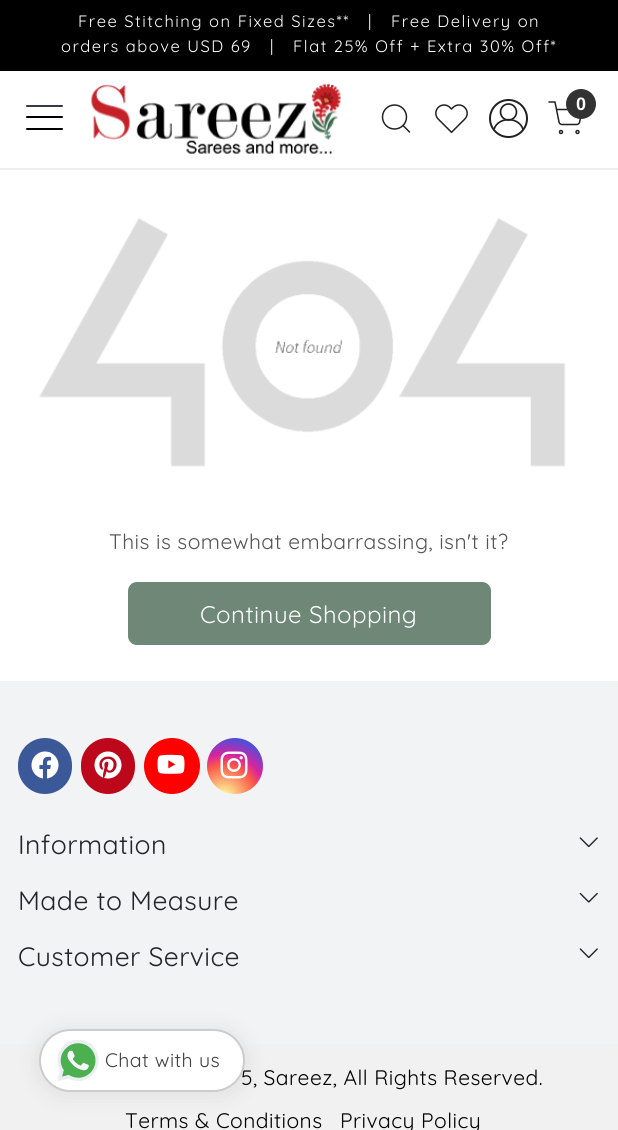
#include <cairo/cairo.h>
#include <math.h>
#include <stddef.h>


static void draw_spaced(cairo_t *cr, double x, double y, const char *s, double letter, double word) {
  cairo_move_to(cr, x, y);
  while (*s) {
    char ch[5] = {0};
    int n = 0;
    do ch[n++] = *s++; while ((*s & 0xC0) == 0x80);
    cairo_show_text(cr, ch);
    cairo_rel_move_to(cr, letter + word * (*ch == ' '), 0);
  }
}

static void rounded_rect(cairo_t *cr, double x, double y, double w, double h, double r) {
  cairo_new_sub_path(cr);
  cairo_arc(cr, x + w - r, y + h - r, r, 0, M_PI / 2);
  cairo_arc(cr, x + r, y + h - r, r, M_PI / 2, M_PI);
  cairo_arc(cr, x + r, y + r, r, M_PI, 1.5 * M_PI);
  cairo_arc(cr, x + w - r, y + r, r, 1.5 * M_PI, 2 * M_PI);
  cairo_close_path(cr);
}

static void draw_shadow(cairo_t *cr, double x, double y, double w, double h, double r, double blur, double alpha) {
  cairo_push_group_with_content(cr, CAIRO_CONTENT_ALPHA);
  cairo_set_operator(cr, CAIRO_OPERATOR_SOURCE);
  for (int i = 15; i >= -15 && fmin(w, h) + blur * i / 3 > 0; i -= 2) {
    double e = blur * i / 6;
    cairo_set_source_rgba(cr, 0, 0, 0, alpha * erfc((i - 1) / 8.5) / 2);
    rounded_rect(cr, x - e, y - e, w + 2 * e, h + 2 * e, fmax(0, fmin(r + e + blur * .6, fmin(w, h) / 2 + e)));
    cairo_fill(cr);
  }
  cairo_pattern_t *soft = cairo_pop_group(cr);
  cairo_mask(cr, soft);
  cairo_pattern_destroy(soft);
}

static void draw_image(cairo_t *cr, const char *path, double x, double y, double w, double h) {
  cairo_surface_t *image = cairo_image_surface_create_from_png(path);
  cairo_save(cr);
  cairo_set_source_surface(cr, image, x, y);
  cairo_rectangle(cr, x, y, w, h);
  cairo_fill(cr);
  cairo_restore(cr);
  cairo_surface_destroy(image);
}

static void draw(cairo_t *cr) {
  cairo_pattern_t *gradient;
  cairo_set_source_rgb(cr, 1, 1, 1);
  cairo_paint(cr);
  cairo_set_source_rgb(cr, 0, 0, 0);
  cairo_rectangle(cr, 0, 0, 618, 71);
  cairo_fill(cr);
  cairo_set_source_rgb(cr, 238 / 255.0, 238 / 255.0, 238 / 255.0);
  cairo_rectangle(cr, 0, 168, 618, 2);
  cairo_fill(cr);
  cairo_set_source_rgb(cr, 0, 0, 0);
  rounded_rect(cr, 26, 128, 37, 2, 1);
  cairo_fill(cr);
  rounded_rect(cr, 26, 116, 37, 2, 1);
  cairo_fill(cr);
  cairo_set_source_rgb(cr, 52 / 255.0, 58 / 255.0, 64 / 255.0);
  rounded_rect(cr, 26, 105, 37, 2, 1);
  cairo_fill(cr);
  draw_image(cr, "images/1.png", 91, 83, 250, 71);
  cairo_arc(cr, 394.5, 117, 12, 0, 2 * M_PI);
  cairo_set_source_rgb(cr, 33 / 255.0, 33 / 255.0, 33 / 255.0);
  cairo_set_line_width(cr, 1.5);
  cairo_stroke(cr);
  cairo_new_path(cr);
  cairo_move_to(cr, 409.5, 132);
  cairo_line_to(cr, 403, 125.5);
  cairo_set_line_cap(cr, CAIRO_LINE_CAP_ROUND);
  cairo_set_line_join(cr, CAIRO_LINE_JOIN_ROUND);
  cairo_stroke(cr);
  draw_image(cr, "images/2.png", 435, 104, 33, 30);
  cairo_arc(cr, 508.5, 118.5, 18.5, 0, 2 * M_PI);
  cairo_set_line_width(cr, 2);
  cairo_set_line_cap(cr, CAIRO_LINE_CAP_BUTT);
  cairo_set_line_join(cr, CAIRO_LINE_JOIN_MITER);
  cairo_stroke(cr);
  cairo_save(cr);
  rounded_rect(cr, 491, 101, 36, 36, 18);
  cairo_clip(cr);
  cairo_new_path(cr);
  cairo_move_to(cr, 493.5, 133.5);
  cairo_curve_to(cr, 493.5, 115, 523.5, 115, 523.5, 133.5);
  cairo_set_line_width(cr, 1.7);
  cairo_set_line_cap(cr, CAIRO_LINE_CAP_SQUARE);
  cairo_stroke(cr);
  cairo_restore(cr);
  cairo_arc(cr, 508.5, 112, 8, 0, 2 * M_PI);
  cairo_set_line_width(cr, 1.7);
  cairo_stroke(cr);
  draw_image(cr, "images/3.png", 548, 101, 34, 34);
  cairo_set_source_rgb(cr, 51 / 255.0, 51 / 255.0, 51 / 255.0);
  cairo_arc(cr, 581, 104, 15, 0, 2 * M_PI);
  cairo_fill(cr);
  draw_image(cr, "images/4.png", 39, 217, 527, 250);
  cairo_set_source_rgb(cr, 110 / 255.0, 135 / 255.0, 118 / 255.0);
  rounded_rect(cr, 129, 583, 361, 61, 8);
  cairo_fill_preserve(cr);
  cairo_set_line_width(cr, 2);
  cairo_stroke(cr);
  cairo_set_source_rgb(cr, 242 / 255.0, 243 / 255.0, 245 / 255.0);
  cairo_rectangle(cr, 0, 681, 618, 363);
  cairo_fill(cr);
  cairo_set_source_rgb(cr, 59 / 255.0, 89 / 255.0, 152 / 255.0);
  rounded_rect(cr, 18, 738, 54, 56, 27);
  cairo_fill(cr);
  draw_image(cr, "images/5.png", 31, 751, 28, 28);
  cairo_set_source_rgb(cr, 189 / 255.0, 8 / 255.0, 28 / 255.0);
  rounded_rect(cr, 81, 738, 54, 56, 27);
  cairo_fill(cr);
  draw_image(cr, "images/6.png", 94, 751, 28, 28);
  cairo_set_source_rgb(cr, 1, 0, 0);
  cairo_arc(cr, 172, 766, 28, 0, 2 * M_PI);
  cairo_fill(cr);
  draw_image(cr, "images/7.png", 157, 754, 28, 20);
  gradient = cairo_pattern_create_radial(224, 797, 0, 224, 797, 71);
  cairo_pattern_add_color_stop_rgba(gradient, 0, 253 / 255.0, 244 / 255.0, 151 / 255.0, 1);
  cairo_pattern_add_color_stop_rgba(gradient, 0.05, 253 / 255.0, 244 / 255.0, 151 / 255.0, 1);
  cairo_pattern_add_color_stop_rgba(gradient, 0.45, 253 / 255.0, 89 / 255.0, 73 / 255.0, 1);
  cairo_pattern_add_color_stop_rgba(gradient, 0.6, 214 / 255.0, 36 / 255.0, 159 / 255.0, 1);
  cairo_pattern_add_color_stop_rgba(gradient, 0.9, 40 / 255.0, 90 / 255.0, 235 / 255.0, 1);
  cairo_set_source(cr, gradient);
  cairo_pattern_destroy(gradient);
  cairo_arc(cr, 235, 766, 28, 0, 2 * M_PI);
  cairo_fill(cr);
  draw_image(cr, "images/8.png", 220, 751, 28, 28);
  draw_image(cr, "images/9.png", 579, 837, 19, 11);
  draw_image(cr, "images/10.png", 579, 892, 19, 11);
  draw_image(cr, "images/9.png", 579, 948, 19, 11);
  cairo_set_source_rgb(cr, 241 / 255.0, 241 / 255.0, 241 / 255.0);
  cairo_rectangle(cr, 0, 1044, 618, 86);
  cairo_fill(cr);
  cairo_set_source_rgb(cr, 32 / 255.0, 33 / 255.0, 36 / 255.0);
  draw_shadow(cr, 39, 1031, 206, 63, 31.5, 11, 0.1);
  cairo_select_font_face(cr, "Quicksand Light", CAIRO_FONT_SLANT_NORMAL, CAIRO_FONT_WEIGHT_NORMAL);
  cairo_set_font_size(cr, 16.5);
  cairo_set_source_rgb(cr, 1, 1, 1);
  draw_spaced(cr, 78, 27, "Free Stitching on Fixed Sizes**", 1.5, 0);
  draw_spaced(cr, 368, 27, "|", 1.5, 0);
  draw_spaced(cr, 391, 27, "Free Delivery on", 1.5, 0);
  draw_spaced(cr, 61, 52, "orders above USD 69", 1.5, 0);
  draw_spaced(cr, 270, 52, "|", 1.5, 0);
  draw_spaced(cr, 293, 52, "Flat 25% Off + Extra 30% Off*", 1.5, 0);
  cairo_select_font_face(cr, "Liberation Sans", CAIRO_FONT_SLANT_NORMAL, CAIRO_FONT_WEIGHT_BOLD);
  cairo_set_font_size(cr, 18);
  draw_spaced(cr, 576, 110, "0", 0.45, 0);
  cairo_select_font_face(cr, "Quicksand Light", CAIRO_FONT_SLANT_NORMAL, CAIRO_FONT_WEIGHT_NORMAL);
  cairo_set_font_size(cr, 21);
  cairo_set_source_rgb(cr, 84 / 255.0, 84 / 255.0, 84 / 255.0);
  draw_spaced(cr, 109, 549, "This is somewhat embarrassing, isn't it?", 0.45, 0);
  cairo_set_font_size(cr, 24);
  cairo_set_source_rgb(cr, 1, 1, 1);
  draw_spaced(cr, 200, 623, "Continue Shopping", 0.45, 0);
  cairo_set_font_size(cr, 26.5);
  cairo_set_source_rgb(cr, 33 / 255.0, 37 / 255.0, 41 / 255.0);
  draw_spaced(cr, 18, 854, "Information", 0.45, 0);
  draw_spaced(cr, 18, 910, "Made to Measure", 0.45, 0);
  draw_spaced(cr, 18, 966, "Customer Service", 0.45, 0);
  cairo_set_font_size(cr, 21);
  cairo_set_source_rgb(cr, 0, 0, 0);
  draw_spaced(cr, 241, 1085, "5, Sareez, All Rights Reserved.", 0.45, 0);
  draw_spaced(cr, 125, 1128, "Terms & Conditions", 0.45, 0);
  draw_spaced(cr, 340, 1128, "Privacy Policy", 0.45, 0);
  cairo_set_source_rgb(cr, 1, 1, 1);
  rounded_rect(cr, 40, 1030, 204, 61, 30.5);
  cairo_fill_preserve(cr);
  cairo_set_source_rgb(cr, 204 / 255.0, 204 / 255.0, 204 / 255.0);
  cairo_stroke(cr);
  draw_image(cr, "images/11.png", 57, 1040, 42, 42);
  cairo_set_font_size(cr, 19.5);
  cairo_set_source_rgb(cr, 64 / 255.0, 64 / 255.0, 64 / 255.0);
  draw_spaced(cr, 105, 1067, "Chat with us", 0.45, 0);
}

int main(void) {
  cairo_surface_t *surface = cairo_image_surface_create(CAIRO_FORMAT_RGB24, 618, 1130);
  cairo_t *cr = cairo_create(surface);
  cairo_font_options_t *options = cairo_font_options_create();
  cairo_font_options_set_hint_metrics(options, CAIRO_HINT_METRICS_OFF);
  cairo_font_options_set_hint_style(options, CAIRO_HINT_STYLE_NONE);
  cairo_set_font_options(cr, options);
  cairo_set_miter_limit(cr, 4);
  draw(cr);
  cairo_surface_write_to_png(surface, "out.png");
  cairo_font_options_destroy(options);
  cairo_destroy(cr);
  cairo_surface_destroy(surface);
  return 0;
}
